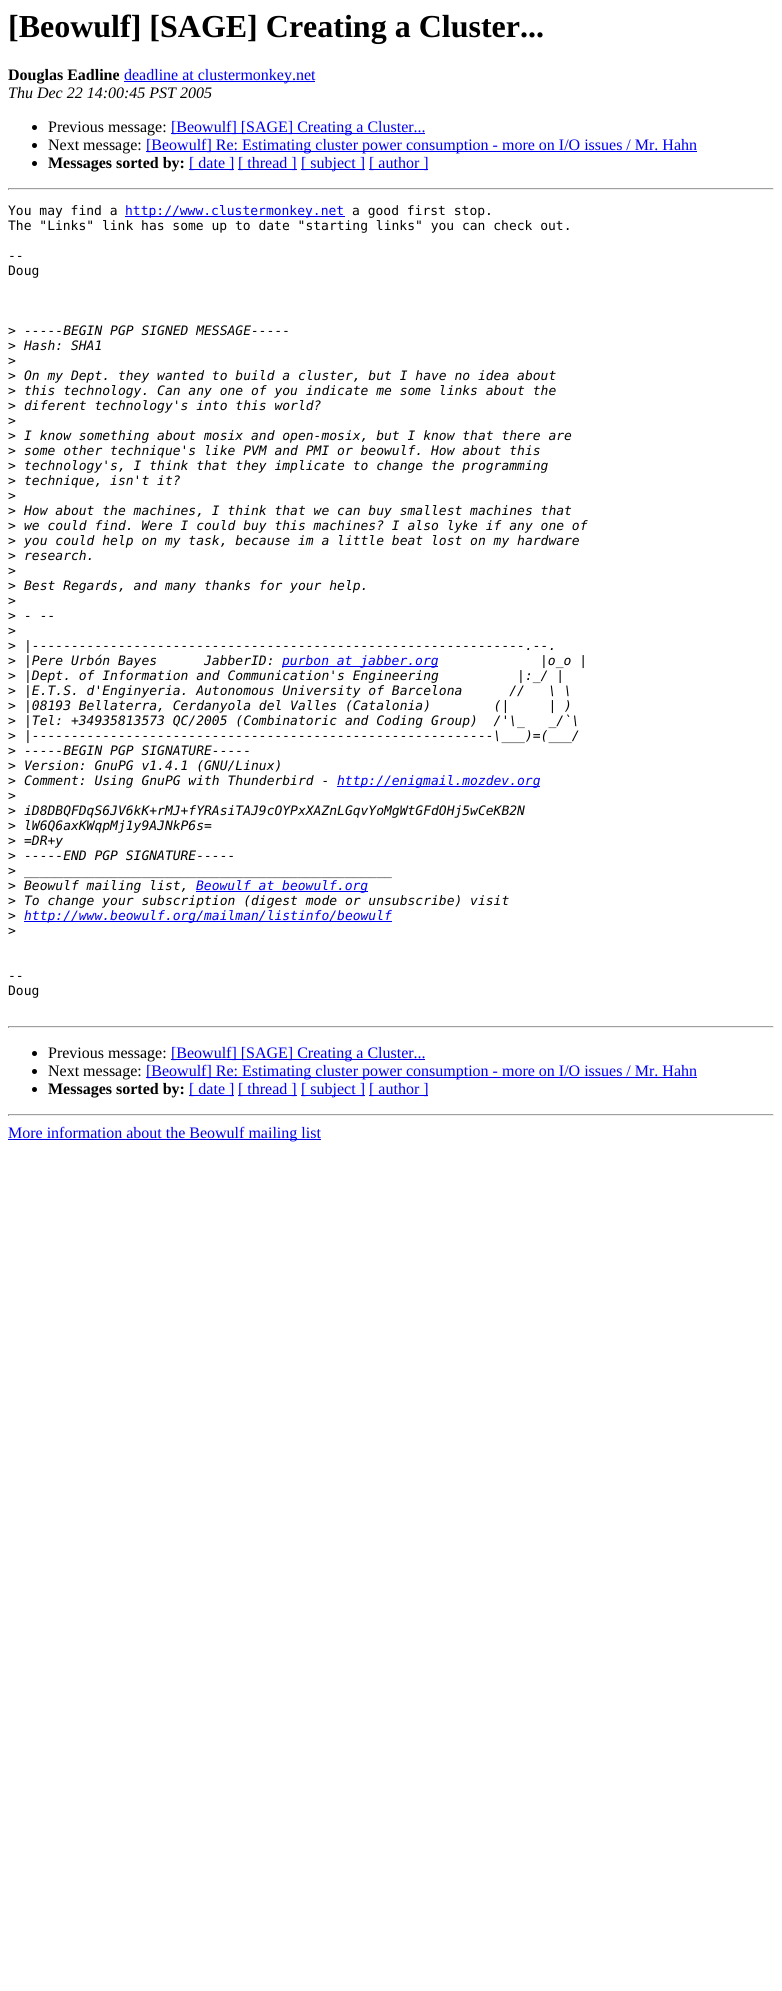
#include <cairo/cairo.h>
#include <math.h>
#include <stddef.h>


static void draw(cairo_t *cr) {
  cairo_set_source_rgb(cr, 1, 1, 1);
  cairo_paint(cr);
  cairo_set_source_rgb(cr, 0, 0, 238 / 255.0);
  cairo_rectangle(cr, 124, 81, 191, 1);
  cairo_fill(cr);
  cairo_set_source_rgb(cr, 0, 0, 0);
  cairo_arc(cr, 34.5, 127.5, 2.5, 0, 2 * M_PI);
  cairo_fill(cr);
  cairo_set_source_rgb(cr, 0, 0, 238 / 255.0);
  cairo_rectangle(cr, 171, 133, 254, 1);
  cairo_fill(cr);
  cairo_set_source_rgb(cr, 0, 0, 0);
  cairo_arc(cr, 34.5, 145.5, 2.5, 0, 2 * M_PI);
  cairo_fill(cr);
  cairo_set_source_rgb(cr, 0, 0, 238 / 255.0);
  cairo_rectangle(cr, 146, 151, 551, 1);
  cairo_fill(cr);
  cairo_set_source_rgb(cr, 0, 0, 0);
  cairo_arc(cr, 34.5, 163.5, 2.5, 0, 2 * M_PI);
  cairo_fill(cr);
  cairo_set_source_rgb(cr, 0, 0, 238 / 255.0);
  cairo_rectangle(cr, 189, 169, 45, 1);
  cairo_fill(cr);
  cairo_rectangle(cr, 238, 169, 59, 1);
  cairo_fill(cr);
  cairo_rectangle(cr, 301, 169, 64, 1);
  cairo_fill(cr);
  cairo_rectangle(cr, 369, 169, 59, 1);
  cairo_fill(cr);
  cairo_set_source_rgb(cr, 159 / 255.0, 159 / 255.0, 159 / 255.0);
  cairo_rectangle(cr, 8, 188, 766, 1);
  cairo_fill(cr);
  cairo_set_source_rgb(cr, 238 / 255.0, 238 / 255.0, 238 / 255.0);
  cairo_rectangle(cr, 773, 188, 1, 2);
  cairo_fill(cr);
  cairo_rectangle(cr, 8, 189, 766, 1);
  cairo_fill(cr);
  cairo_set_source_rgb(cr, 159 / 255.0, 159 / 255.0, 159 / 255.0);
  cairo_rectangle(cr, 8, 188, 1, 2);
  cairo_fill(cr);
  cairo_set_source_rgb(cr, 0, 0, 238 / 255.0);
  cairo_rectangle(cr, 125, 216, 220, 1);
  cairo_fill(cr);
  cairo_rectangle(cr, 282, 666, 156, 1);
  cairo_fill(cr);
  cairo_rectangle(cr, 337, 786, 203, 1);
  cairo_fill(cr);
  cairo_rectangle(cr, 196, 891, 172, 1);
  cairo_fill(cr);
  cairo_rectangle(cr, 24, 921, 368, 1);
  cairo_fill(cr);
  cairo_set_source_rgb(cr, 159 / 255.0, 159 / 255.0, 159 / 255.0);
  cairo_rectangle(cr, 8, 1026, 766, 1);
  cairo_fill(cr);
  cairo_set_source_rgb(cr, 238 / 255.0, 238 / 255.0, 238 / 255.0);
  cairo_rectangle(cr, 773, 1026, 1, 2);
  cairo_fill(cr);
  cairo_rectangle(cr, 8, 1027, 766, 1);
  cairo_fill(cr);
  cairo_set_source_rgb(cr, 159 / 255.0, 159 / 255.0, 159 / 255.0);
  cairo_rectangle(cr, 8, 1026, 1, 2);
  cairo_fill(cr);
  cairo_set_source_rgb(cr, 0, 0, 0);
  cairo_arc(cr, 34.5, 1053.5, 2.5, 0, 2 * M_PI);
  cairo_fill(cr);
  cairo_set_source_rgb(cr, 0, 0, 238 / 255.0);
  cairo_rectangle(cr, 171, 1059, 254, 1);
  cairo_fill(cr);
  cairo_set_source_rgb(cr, 0, 0, 0);
  cairo_arc(cr, 34.5, 1071.5, 2.5, 0, 2 * M_PI);
  cairo_fill(cr);
  cairo_set_source_rgb(cr, 0, 0, 238 / 255.0);
  cairo_rectangle(cr, 146, 1077, 551, 1);
  cairo_fill(cr);
  cairo_set_source_rgb(cr, 0, 0, 0);
  cairo_arc(cr, 34.5, 1089.5, 2.5, 0, 2 * M_PI);
  cairo_fill(cr);
  cairo_set_source_rgb(cr, 0, 0, 238 / 255.0);
  cairo_rectangle(cr, 189, 1095, 45, 1);
  cairo_fill(cr);
  cairo_rectangle(cr, 238, 1095, 59, 1);
  cairo_fill(cr);
  cairo_rectangle(cr, 301, 1095, 64, 1);
  cairo_fill(cr);
  cairo_rectangle(cr, 369, 1095, 59, 1);
  cairo_fill(cr);
  cairo_set_source_rgb(cr, 159 / 255.0, 159 / 255.0, 159 / 255.0);
  cairo_rectangle(cr, 8, 1114, 766, 1);
  cairo_fill(cr);
  cairo_set_source_rgb(cr, 238 / 255.0, 238 / 255.0, 238 / 255.0);
  cairo_rectangle(cr, 773, 1114, 1, 2);
  cairo_fill(cr);
  cairo_rectangle(cr, 8, 1115, 766, 1);
  cairo_fill(cr);
  cairo_set_source_rgb(cr, 159 / 255.0, 159 / 255.0, 159 / 255.0);
  cairo_rectangle(cr, 8, 1114, 1, 2);
  cairo_fill(cr);
  cairo_set_source_rgb(cr, 0, 0, 238 / 255.0);
  cairo_rectangle(cr, 8, 1139, 313, 1);
  cairo_fill(cr);
  cairo_select_font_face(cr, "Liberation Serif", CAIRO_FONT_SLANT_NORMAL, CAIRO_FONT_WEIGHT_BOLD);
  cairo_set_font_size(cr, 32);
  cairo_set_source_rgb(cr, 0, 0, 0);
  cairo_move_to(cr, 8, 37);
  cairo_show_text(cr, "[Beowulf] [SAGE] Creating a Cluster...");
  cairo_set_font_size(cr, 16);
  cairo_move_to(cr, 8, 80);
  cairo_show_text(cr, "Douglas Eadline");
  cairo_select_font_face(cr, "Liberation Serif", CAIRO_FONT_SLANT_NORMAL, CAIRO_FONT_WEIGHT_NORMAL);
  cairo_set_source_rgb(cr, 0, 0, 238 / 255.0);
  cairo_move_to(cr, 124, 80);
  cairo_show_text(cr, "deadline at clustermonkey.net");
  cairo_select_font_face(cr, "Liberation Serif", CAIRO_FONT_SLANT_ITALIC, CAIRO_FONT_WEIGHT_NORMAL);
  cairo_set_source_rgb(cr, 0, 0, 0);
  cairo_move_to(cr, 8, 98);
  cairo_show_text(cr, "Thu Dec 22 14:00:45 PST 2005");
  cairo_select_font_face(cr, "Liberation Serif", CAIRO_FONT_SLANT_NORMAL, CAIRO_FONT_WEIGHT_NORMAL);
  cairo_move_to(cr, 48, 132);
  cairo_show_text(cr, "Previous message:");
  cairo_set_source_rgb(cr, 0, 0, 238 / 255.0);
  cairo_move_to(cr, 171, 132);
  cairo_show_text(cr, "[Beowulf] [SAGE] Creating a Cluster...");
  cairo_set_source_rgb(cr, 0, 0, 0);
  cairo_move_to(cr, 48, 150);
  cairo_show_text(cr, "Next message:");
  cairo_set_source_rgb(cr, 0, 0, 238 / 255.0);
  cairo_move_to(cr, 146, 150);
  cairo_show_text(cr, "[Beowulf] Re: Estimating cluster power consumption - more on I/O issues / Mr. Hahn");
  cairo_select_font_face(cr, "Liberation Serif", CAIRO_FONT_SLANT_NORMAL, CAIRO_FONT_WEIGHT_BOLD);
  cairo_set_source_rgb(cr, 0, 0, 0);
  cairo_move_to(cr, 48, 168);
  cairo_show_text(cr, "Messages sorted by:");
  cairo_select_font_face(cr, "Liberation Serif", CAIRO_FONT_SLANT_NORMAL, CAIRO_FONT_WEIGHT_NORMAL);
  cairo_set_source_rgb(cr, 0, 0, 238 / 255.0);
  cairo_move_to(cr, 189, 168);
  cairo_show_text(cr, "[ date ]");
  cairo_move_to(cr, 238, 168);
  cairo_show_text(cr, "[ thread ]");
  cairo_move_to(cr, 301, 168);
  cairo_show_text(cr, "[ subject ]");
  cairo_move_to(cr, 369, 168);
  cairo_show_text(cr, "[ author ]");
  cairo_select_font_face(cr, "DejaVu Sans Mono", CAIRO_FONT_SLANT_NORMAL, CAIRO_FONT_WEIGHT_NORMAL);
  cairo_set_font_size(cr, 13);
  cairo_set_source_rgb(cr, 0, 0, 0);
  cairo_move_to(cr, 8, 215);
  cairo_show_text(cr, "You may find a");
  cairo_set_source_rgb(cr, 0, 0, 238 / 255.0);
  cairo_move_to(cr, 125, 215);
  cairo_show_text(cr, "http://www.clustermonkey.net");
  cairo_set_source_rgb(cr, 0, 0, 0);
  cairo_move_to(cr, 352, 215);
  cairo_show_text(cr, "a good first stop.");
  cairo_move_to(cr, 8, 230);
  cairo_show_text(cr, "The \"Links\" link has some up to date \"starting links\" you can check out.");
  cairo_move_to(cr, 8, 260);
  cairo_show_text(cr, "--");
  cairo_move_to(cr, 8, 275);
  cairo_show_text(cr, "Doug");
  cairo_move_to(cr, 8, 335);
  cairo_show_text(cr, ">");
  cairo_select_font_face(cr, "DejaVu Sans Mono", CAIRO_FONT_SLANT_ITALIC, CAIRO_FONT_WEIGHT_NORMAL);
  cairo_move_to(cr, 24, 335);
  cairo_show_text(cr, "-----BEGIN PGP SIGNED MESSAGE-----");
  cairo_select_font_face(cr, "DejaVu Sans Mono", CAIRO_FONT_SLANT_NORMAL, CAIRO_FONT_WEIGHT_NORMAL);
  cairo_move_to(cr, 8, 350);
  cairo_show_text(cr, ">");
  cairo_select_font_face(cr, "DejaVu Sans Mono", CAIRO_FONT_SLANT_ITALIC, CAIRO_FONT_WEIGHT_NORMAL);
  cairo_move_to(cr, 24, 350);
  cairo_show_text(cr, "Hash: SHA1");
  cairo_select_font_face(cr, "DejaVu Sans Mono", CAIRO_FONT_SLANT_NORMAL, CAIRO_FONT_WEIGHT_NORMAL);
  cairo_move_to(cr, 8, 365);
  cairo_show_text(cr, ">");
  cairo_move_to(cr, 8, 380);
  cairo_show_text(cr, ">");
  cairo_select_font_face(cr, "DejaVu Sans Mono", CAIRO_FONT_SLANT_ITALIC, CAIRO_FONT_WEIGHT_NORMAL);
  cairo_move_to(cr, 24, 380);
  cairo_show_text(cr, "On my Dept. they wanted to build a cluster, but I have no idea about");
  cairo_select_font_face(cr, "DejaVu Sans Mono", CAIRO_FONT_SLANT_NORMAL, CAIRO_FONT_WEIGHT_NORMAL);
  cairo_move_to(cr, 8, 395);
  cairo_show_text(cr, ">");
  cairo_select_font_face(cr, "DejaVu Sans Mono", CAIRO_FONT_SLANT_ITALIC, CAIRO_FONT_WEIGHT_NORMAL);
  cairo_move_to(cr, 24, 395);
  cairo_show_text(cr, "this technology. Can any one of you indicate me some links about the");
  cairo_select_font_face(cr, "DejaVu Sans Mono", CAIRO_FONT_SLANT_NORMAL, CAIRO_FONT_WEIGHT_NORMAL);
  cairo_move_to(cr, 8, 410);
  cairo_show_text(cr, ">");
  cairo_select_font_face(cr, "DejaVu Sans Mono", CAIRO_FONT_SLANT_ITALIC, CAIRO_FONT_WEIGHT_NORMAL);
  cairo_move_to(cr, 24, 410);
  cairo_show_text(cr, "diferent technology's into this world?");
  cairo_select_font_face(cr, "DejaVu Sans Mono", CAIRO_FONT_SLANT_NORMAL, CAIRO_FONT_WEIGHT_NORMAL);
  cairo_move_to(cr, 8, 425);
  cairo_show_text(cr, ">");
  cairo_move_to(cr, 8, 440);
  cairo_show_text(cr, ">");
  cairo_select_font_face(cr, "DejaVu Sans Mono", CAIRO_FONT_SLANT_ITALIC, CAIRO_FONT_WEIGHT_NORMAL);
  cairo_move_to(cr, 24, 440);
  cairo_show_text(cr, "I know something about mosix and open-mosix, but I know that there are");
  cairo_select_font_face(cr, "DejaVu Sans Mono", CAIRO_FONT_SLANT_NORMAL, CAIRO_FONT_WEIGHT_NORMAL);
  cairo_move_to(cr, 8, 455);
  cairo_show_text(cr, ">");
  cairo_select_font_face(cr, "DejaVu Sans Mono", CAIRO_FONT_SLANT_ITALIC, CAIRO_FONT_WEIGHT_NORMAL);
  cairo_move_to(cr, 24, 455);
  cairo_show_text(cr, "some other technique's like PVM and PMI or beowulf. How about this");
  cairo_select_font_face(cr, "DejaVu Sans Mono", CAIRO_FONT_SLANT_NORMAL, CAIRO_FONT_WEIGHT_NORMAL);
  cairo_move_to(cr, 8, 470);
  cairo_show_text(cr, ">");
  cairo_select_font_face(cr, "DejaVu Sans Mono", CAIRO_FONT_SLANT_ITALIC, CAIRO_FONT_WEIGHT_NORMAL);
  cairo_move_to(cr, 24, 470);
  cairo_show_text(cr, "technology's, I think that they implicate to change the programming");
  cairo_select_font_face(cr, "DejaVu Sans Mono", CAIRO_FONT_SLANT_NORMAL, CAIRO_FONT_WEIGHT_NORMAL);
  cairo_move_to(cr, 8, 485);
  cairo_show_text(cr, ">");
  cairo_select_font_face(cr, "DejaVu Sans Mono", CAIRO_FONT_SLANT_ITALIC, CAIRO_FONT_WEIGHT_NORMAL);
  cairo_move_to(cr, 24, 485);
  cairo_show_text(cr, "technique, isn't it?");
  cairo_select_font_face(cr, "DejaVu Sans Mono", CAIRO_FONT_SLANT_NORMAL, CAIRO_FONT_WEIGHT_NORMAL);
  cairo_move_to(cr, 8, 500);
  cairo_show_text(cr, ">");
  cairo_move_to(cr, 8, 515);
  cairo_show_text(cr, ">");
  cairo_select_font_face(cr, "DejaVu Sans Mono", CAIRO_FONT_SLANT_ITALIC, CAIRO_FONT_WEIGHT_NORMAL);
  cairo_move_to(cr, 24, 515);
  cairo_show_text(cr, "How about the machines, I think that we can buy smallest machines that");
  cairo_select_font_face(cr, "DejaVu Sans Mono", CAIRO_FONT_SLANT_NORMAL, CAIRO_FONT_WEIGHT_NORMAL);
  cairo_move_to(cr, 8, 530);
  cairo_show_text(cr, ">");
  cairo_select_font_face(cr, "DejaVu Sans Mono", CAIRO_FONT_SLANT_ITALIC, CAIRO_FONT_WEIGHT_NORMAL);
  cairo_move_to(cr, 24, 530);
  cairo_show_text(cr, "we could find. Were I could buy this machines? I also lyke if any one of");
  cairo_select_font_face(cr, "DejaVu Sans Mono", CAIRO_FONT_SLANT_NORMAL, CAIRO_FONT_WEIGHT_NORMAL);
  cairo_move_to(cr, 8, 545);
  cairo_show_text(cr, ">");
  cairo_select_font_face(cr, "DejaVu Sans Mono", CAIRO_FONT_SLANT_ITALIC, CAIRO_FONT_WEIGHT_NORMAL);
  cairo_move_to(cr, 24, 545);
  cairo_show_text(cr, "you could help on my task, because im a little beat lost on my hardware");
  cairo_select_font_face(cr, "DejaVu Sans Mono", CAIRO_FONT_SLANT_NORMAL, CAIRO_FONT_WEIGHT_NORMAL);
  cairo_move_to(cr, 8, 560);
  cairo_show_text(cr, ">");
  cairo_select_font_face(cr, "DejaVu Sans Mono", CAIRO_FONT_SLANT_ITALIC, CAIRO_FONT_WEIGHT_NORMAL);
  cairo_move_to(cr, 24, 560);
  cairo_show_text(cr, "research.");
  cairo_select_font_face(cr, "DejaVu Sans Mono", CAIRO_FONT_SLANT_NORMAL, CAIRO_FONT_WEIGHT_NORMAL);
  cairo_move_to(cr, 8, 575);
  cairo_show_text(cr, ">");
  cairo_move_to(cr, 8, 590);
  cairo_show_text(cr, ">");
  cairo_select_font_face(cr, "DejaVu Sans Mono", CAIRO_FONT_SLANT_ITALIC, CAIRO_FONT_WEIGHT_NORMAL);
  cairo_move_to(cr, 24, 590);
  cairo_show_text(cr, "Best Regards, and many thanks for your help.");
  cairo_select_font_face(cr, "DejaVu Sans Mono", CAIRO_FONT_SLANT_NORMAL, CAIRO_FONT_WEIGHT_NORMAL);
  cairo_move_to(cr, 8, 605);
  cairo_show_text(cr, ">");
  cairo_move_to(cr, 8, 620);
  cairo_show_text(cr, ">");
  cairo_select_font_face(cr, "DejaVu Sans Mono", CAIRO_FONT_SLANT_ITALIC, CAIRO_FONT_WEIGHT_NORMAL);
  cairo_move_to(cr, 24, 620);
  cairo_show_text(cr, "- --");
  cairo_select_font_face(cr, "DejaVu Sans Mono", CAIRO_FONT_SLANT_NORMAL, CAIRO_FONT_WEIGHT_NORMAL);
  cairo_move_to(cr, 8, 635);
  cairo_show_text(cr, ">");
  cairo_move_to(cr, 8, 650);
  cairo_show_text(cr, ">");
  cairo_select_font_face(cr, "DejaVu Sans Mono", CAIRO_FONT_SLANT_ITALIC, CAIRO_FONT_WEIGHT_NORMAL);
  cairo_move_to(cr, 24, 650);
  cairo_show_text(cr, "|---------------------------------------------------------------.--.");
  cairo_select_font_face(cr, "DejaVu Sans Mono", CAIRO_FONT_SLANT_NORMAL, CAIRO_FONT_WEIGHT_NORMAL);
  cairo_move_to(cr, 8, 665);
  cairo_show_text(cr, ">");
  cairo_select_font_face(cr, "DejaVu Sans Mono", CAIRO_FONT_SLANT_ITALIC, CAIRO_FONT_WEIGHT_NORMAL);
  cairo_move_to(cr, 24, 665);
  cairo_show_text(cr, "|Pere Urbón Bayes      JabberID:");
  cairo_set_source_rgb(cr, 0, 0, 238 / 255.0);
  cairo_move_to(cr, 282, 665);
  cairo_show_text(cr, "purbon at jabber.org");
  cairo_set_source_rgb(cr, 0, 0, 0);
  cairo_move_to(cr, 540, 665);
  cairo_show_text(cr, "|o_o |");
  cairo_select_font_face(cr, "DejaVu Sans Mono", CAIRO_FONT_SLANT_NORMAL, CAIRO_FONT_WEIGHT_NORMAL);
  cairo_move_to(cr, 8, 680);
  cairo_show_text(cr, ">");
  cairo_select_font_face(cr, "DejaVu Sans Mono", CAIRO_FONT_SLANT_ITALIC, CAIRO_FONT_WEIGHT_NORMAL);
  cairo_move_to(cr, 24, 680);
  cairo_show_text(cr, "|Dept. of Information and Communication's Engineering          |:_/ |");
  cairo_select_font_face(cr, "DejaVu Sans Mono", CAIRO_FONT_SLANT_NORMAL, CAIRO_FONT_WEIGHT_NORMAL);
  cairo_move_to(cr, 8, 695);
  cairo_show_text(cr, ">");
  cairo_select_font_face(cr, "DejaVu Sans Mono", CAIRO_FONT_SLANT_ITALIC, CAIRO_FONT_WEIGHT_NORMAL);
  cairo_move_to(cr, 24, 695);
  cairo_show_text(cr, "|E.T.S. d'Enginyeria. Autonomous University of Barcelona      //   \\ \\");
  cairo_select_font_face(cr, "DejaVu Sans Mono", CAIRO_FONT_SLANT_NORMAL, CAIRO_FONT_WEIGHT_NORMAL);
  cairo_move_to(cr, 8, 710);
  cairo_show_text(cr, ">");
  cairo_select_font_face(cr, "DejaVu Sans Mono", CAIRO_FONT_SLANT_ITALIC, CAIRO_FONT_WEIGHT_NORMAL);
  cairo_move_to(cr, 24, 710);
  cairo_show_text(cr, "|08193 Bellaterra, Cerdanyola del Valles (Catalonia)        (|     | )");
  cairo_select_font_face(cr, "DejaVu Sans Mono", CAIRO_FONT_SLANT_NORMAL, CAIRO_FONT_WEIGHT_NORMAL);
  cairo_move_to(cr, 8, 725);
  cairo_show_text(cr, ">");
  cairo_select_font_face(cr, "DejaVu Sans Mono", CAIRO_FONT_SLANT_ITALIC, CAIRO_FONT_WEIGHT_NORMAL);
  cairo_move_to(cr, 24, 725);
  cairo_show_text(cr, "|Tel: +34935813573 QC/2005 (Combinatoric and Coding Group)  /'\\_   _/`\\");
  cairo_select_font_face(cr, "DejaVu Sans Mono", CAIRO_FONT_SLANT_NORMAL, CAIRO_FONT_WEIGHT_NORMAL);
  cairo_move_to(cr, 8, 740);
  cairo_show_text(cr, ">");
  cairo_select_font_face(cr, "DejaVu Sans Mono", CAIRO_FONT_SLANT_ITALIC, CAIRO_FONT_WEIGHT_NORMAL);
  cairo_move_to(cr, 24, 740);
  cairo_show_text(cr, "|-----------------------------------------------------------\\___)=(___/");
  cairo_select_font_face(cr, "DejaVu Sans Mono", CAIRO_FONT_SLANT_NORMAL, CAIRO_FONT_WEIGHT_NORMAL);
  cairo_move_to(cr, 8, 755);
  cairo_show_text(cr, ">");
  cairo_select_font_face(cr, "DejaVu Sans Mono", CAIRO_FONT_SLANT_ITALIC, CAIRO_FONT_WEIGHT_NORMAL);
  cairo_move_to(cr, 24, 755);
  cairo_show_text(cr, "-----BEGIN PGP SIGNATURE-----");
  cairo_select_font_face(cr, "DejaVu Sans Mono", CAIRO_FONT_SLANT_NORMAL, CAIRO_FONT_WEIGHT_NORMAL);
  cairo_move_to(cr, 8, 770);
  cairo_show_text(cr, ">");
  cairo_select_font_face(cr, "DejaVu Sans Mono", CAIRO_FONT_SLANT_ITALIC, CAIRO_FONT_WEIGHT_NORMAL);
  cairo_move_to(cr, 24, 770);
  cairo_show_text(cr, "Version: GnuPG v1.4.1 (GNU/Linux)");
  cairo_select_font_face(cr, "DejaVu Sans Mono", CAIRO_FONT_SLANT_NORMAL, CAIRO_FONT_WEIGHT_NORMAL);
  cairo_move_to(cr, 8, 785);
  cairo_show_text(cr, ">");
  cairo_select_font_face(cr, "DejaVu Sans Mono", CAIRO_FONT_SLANT_ITALIC, CAIRO_FONT_WEIGHT_NORMAL);
  cairo_move_to(cr, 24, 785);
  cairo_show_text(cr, "Comment: Using GnuPG with Thunderbird -");
  cairo_set_source_rgb(cr, 0, 0, 238 / 255.0);
  cairo_move_to(cr, 337, 785);
  cairo_show_text(cr, "http://enigmail.mozdev.org");
  cairo_select_font_face(cr, "DejaVu Sans Mono", CAIRO_FONT_SLANT_NORMAL, CAIRO_FONT_WEIGHT_NORMAL);
  cairo_set_source_rgb(cr, 0, 0, 0);
  cairo_move_to(cr, 8, 800);
  cairo_show_text(cr, ">");
  cairo_move_to(cr, 8, 815);
  cairo_show_text(cr, ">");
  cairo_select_font_face(cr, "DejaVu Sans Mono", CAIRO_FONT_SLANT_ITALIC, CAIRO_FONT_WEIGHT_NORMAL);
  cairo_move_to(cr, 24, 815);
  cairo_show_text(cr, "iD8DBQFDqS6JV6kK+rMJ+fYRAsiTAJ9cOYPxXAZnLGqvYoMgWtGFdOHj5wCeKB2N");
  cairo_select_font_face(cr, "DejaVu Sans Mono", CAIRO_FONT_SLANT_NORMAL, CAIRO_FONT_WEIGHT_NORMAL);
  cairo_move_to(cr, 8, 830);
  cairo_show_text(cr, ">");
  cairo_select_font_face(cr, "DejaVu Sans Mono", CAIRO_FONT_SLANT_ITALIC, CAIRO_FONT_WEIGHT_NORMAL);
  cairo_move_to(cr, 24, 830);
  cairo_show_text(cr, "lW6Q6axKWqpMj1y9AJNkP6s=");
  cairo_select_font_face(cr, "DejaVu Sans Mono", CAIRO_FONT_SLANT_NORMAL, CAIRO_FONT_WEIGHT_NORMAL);
  cairo_move_to(cr, 8, 845);
  cairo_show_text(cr, ">");
  cairo_select_font_face(cr, "DejaVu Sans Mono", CAIRO_FONT_SLANT_ITALIC, CAIRO_FONT_WEIGHT_NORMAL);
  cairo_move_to(cr, 24, 845);
  cairo_show_text(cr, "=DR+y");
  cairo_select_font_face(cr, "DejaVu Sans Mono", CAIRO_FONT_SLANT_NORMAL, CAIRO_FONT_WEIGHT_NORMAL);
  cairo_move_to(cr, 8, 860);
  cairo_show_text(cr, ">");
  cairo_select_font_face(cr, "DejaVu Sans Mono", CAIRO_FONT_SLANT_ITALIC, CAIRO_FONT_WEIGHT_NORMAL);
  cairo_move_to(cr, 24, 860);
  cairo_show_text(cr, "-----END PGP SIGNATURE-----");
  cairo_select_font_face(cr, "DejaVu Sans Mono", CAIRO_FONT_SLANT_NORMAL, CAIRO_FONT_WEIGHT_NORMAL);
  cairo_move_to(cr, 8, 875);
  cairo_show_text(cr, ">");
  cairo_select_font_face(cr, "DejaVu Sans Mono", CAIRO_FONT_SLANT_ITALIC, CAIRO_FONT_WEIGHT_NORMAL);
  cairo_move_to(cr, 24, 875);
  cairo_show_text(cr, "_______________________________________________");
  cairo_select_font_face(cr, "DejaVu Sans Mono", CAIRO_FONT_SLANT_NORMAL, CAIRO_FONT_WEIGHT_NORMAL);
  cairo_move_to(cr, 8, 890);
  cairo_show_text(cr, ">");
  cairo_select_font_face(cr, "DejaVu Sans Mono", CAIRO_FONT_SLANT_ITALIC, CAIRO_FONT_WEIGHT_NORMAL);
  cairo_move_to(cr, 24, 890);
  cairo_show_text(cr, "Beowulf mailing list,");
  cairo_set_source_rgb(cr, 0, 0, 238 / 255.0);
  cairo_move_to(cr, 196, 890);
  cairo_show_text(cr, "Beowulf at beowulf.org");
  cairo_select_font_face(cr, "DejaVu Sans Mono", CAIRO_FONT_SLANT_NORMAL, CAIRO_FONT_WEIGHT_NORMAL);
  cairo_set_source_rgb(cr, 0, 0, 0);
  cairo_move_to(cr, 8, 905);
  cairo_show_text(cr, ">");
  cairo_select_font_face(cr, "DejaVu Sans Mono", CAIRO_FONT_SLANT_ITALIC, CAIRO_FONT_WEIGHT_NORMAL);
  cairo_move_to(cr, 24, 905);
  cairo_show_text(cr, "To change your subscription (digest mode or unsubscribe) visit");
  cairo_select_font_face(cr, "DejaVu Sans Mono", CAIRO_FONT_SLANT_NORMAL, CAIRO_FONT_WEIGHT_NORMAL);
  cairo_move_to(cr, 8, 920);
  cairo_show_text(cr, ">");
  cairo_select_font_face(cr, "DejaVu Sans Mono", CAIRO_FONT_SLANT_ITALIC, CAIRO_FONT_WEIGHT_NORMAL);
  cairo_set_source_rgb(cr, 0, 0, 238 / 255.0);
  cairo_move_to(cr, 24, 920);
  cairo_show_text(cr, "http://www.beowulf.org/mailman/listinfo/beowulf");
  cairo_select_font_face(cr, "DejaVu Sans Mono", CAIRO_FONT_SLANT_NORMAL, CAIRO_FONT_WEIGHT_NORMAL);
  cairo_set_source_rgb(cr, 0, 0, 0);
  cairo_move_to(cr, 8, 935);
  cairo_show_text(cr, ">");
  cairo_move_to(cr, 8, 980);
  cairo_show_text(cr, "--");
  cairo_move_to(cr, 8, 995);
  cairo_show_text(cr, "Doug");
  cairo_select_font_face(cr, "Liberation Serif", CAIRO_FONT_SLANT_NORMAL, CAIRO_FONT_WEIGHT_NORMAL);
  cairo_set_font_size(cr, 16);
  cairo_move_to(cr, 48, 1058);
  cairo_show_text(cr, "Previous message:");
  cairo_set_source_rgb(cr, 0, 0, 238 / 255.0);
  cairo_move_to(cr, 171, 1058);
  cairo_show_text(cr, "[Beowulf] [SAGE] Creating a Cluster...");
  cairo_set_source_rgb(cr, 0, 0, 0);
  cairo_move_to(cr, 48, 1076);
  cairo_show_text(cr, "Next message:");
  cairo_set_source_rgb(cr, 0, 0, 238 / 255.0);
  cairo_move_to(cr, 146, 1076);
  cairo_show_text(cr, "[Beowulf] Re: Estimating cluster power consumption - more on I/O issues / Mr. Hahn");
  cairo_select_font_face(cr, "Liberation Serif", CAIRO_FONT_SLANT_NORMAL, CAIRO_FONT_WEIGHT_BOLD);
  cairo_set_source_rgb(cr, 0, 0, 0);
  cairo_move_to(cr, 48, 1094);
  cairo_show_text(cr, "Messages sorted by:");
  cairo_select_font_face(cr, "Liberation Serif", CAIRO_FONT_SLANT_NORMAL, CAIRO_FONT_WEIGHT_NORMAL);
  cairo_set_source_rgb(cr, 0, 0, 238 / 255.0);
  cairo_move_to(cr, 189, 1094);
  cairo_show_text(cr, "[ date ]");
  cairo_move_to(cr, 238, 1094);
  cairo_show_text(cr, "[ thread ]");
  cairo_move_to(cr, 301, 1094);
  cairo_show_text(cr, "[ subject ]");
  cairo_move_to(cr, 369, 1094);
  cairo_show_text(cr, "[ author ]");
  cairo_move_to(cr, 8, 1138);
  cairo_show_text(cr, "More information about the Beowulf mailing list");
}

int main(void) {
  cairo_surface_t *surface = cairo_image_surface_create(CAIRO_FORMAT_RGB24, 782, 1991);
  cairo_t *cr = cairo_create(surface);
  cairo_font_options_t *options = cairo_font_options_create();
  cairo_font_options_set_hint_metrics(options, CAIRO_HINT_METRICS_OFF);
  cairo_font_options_set_hint_style(options, CAIRO_HINT_STYLE_NONE);
  cairo_set_font_options(cr, options);
  cairo_set_miter_limit(cr, 4);
  draw(cr);
  cairo_surface_write_to_png(surface, "out.png");
  cairo_font_options_destroy(options);
  cairo_destroy(cr);
  cairo_surface_destroy(surface);
  return 0;
}
